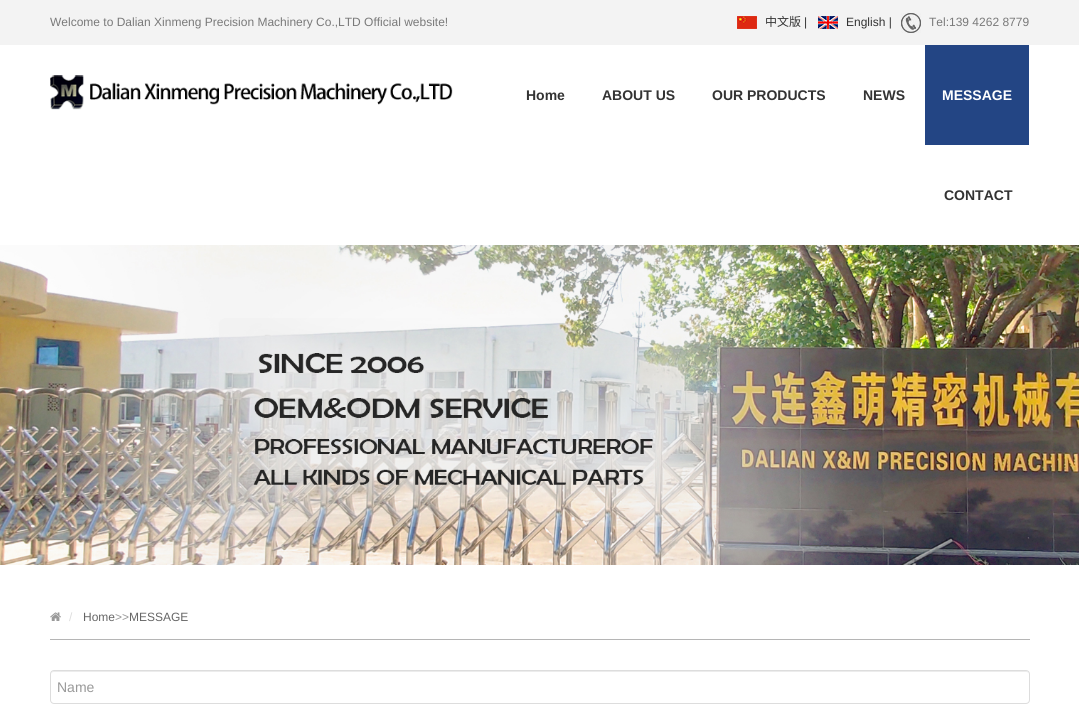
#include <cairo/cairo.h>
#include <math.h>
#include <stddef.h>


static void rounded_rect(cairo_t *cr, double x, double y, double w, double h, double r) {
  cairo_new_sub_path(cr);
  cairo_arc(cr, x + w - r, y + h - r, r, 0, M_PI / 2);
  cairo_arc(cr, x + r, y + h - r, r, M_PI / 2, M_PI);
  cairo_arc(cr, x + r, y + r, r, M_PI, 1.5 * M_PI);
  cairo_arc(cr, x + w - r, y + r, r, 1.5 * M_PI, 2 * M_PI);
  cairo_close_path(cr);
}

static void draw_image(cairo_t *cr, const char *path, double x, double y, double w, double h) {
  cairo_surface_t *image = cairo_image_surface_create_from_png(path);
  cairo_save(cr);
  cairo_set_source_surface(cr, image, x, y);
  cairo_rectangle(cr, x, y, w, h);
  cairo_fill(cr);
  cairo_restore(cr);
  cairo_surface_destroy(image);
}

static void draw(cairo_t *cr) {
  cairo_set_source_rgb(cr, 1, 1, 1);
  cairo_paint(cr);
  cairo_set_source_rgb(cr, 243 / 255.0, 243 / 255.0, 243 / 255.0);
  cairo_rectangle(cr, 0, 0, 1079, 45);
  cairo_fill(cr);
  draw_image(cr, "images/1.png", 737, 16, 20, 13);
  draw_image(cr, "images/2.png", 818, 16, 20, 13);
  draw_image(cr, "images/3.png", 901, 13, 20, 20);
  draw_image(cr, "images/4.png", 50, 75, 403, 35);
  cairo_set_source_rgb(cr, 35 / 255.0, 69 / 255.0, 132 / 255.0);
  cairo_rectangle(cr, 925, 45, 104, 100);
  cairo_fill(cr);
  draw_image(cr, "images/5.png", 0, 245, 1079, 320);
  cairo_set_source_rgb(cr, 181 / 255.0, 181 / 255.0, 181 / 255.0);
  cairo_rectangle(cr, 50, 639, 980, 1);
  cairo_fill(cr);
  draw_image(cr, "images/6.png", 50, 612, 11, 9);
  cairo_set_source_rgb(cr, 236 / 255.0, 236 / 255.0, 236 / 255.0);
  cairo_new_path(cr);
  cairo_move_to(cr, 54, 672);
  cairo_line_to(cr, 1026, 672);
  cairo_curve_to(cr, 1028, 672, 1029, 673, 1029, 675);
  cairo_curve_to(cr, 1029, 673, 1028, 671, 1026, 671);
  cairo_line_to(cr, 54, 671);
  cairo_curve_to(cr, 52, 671, 51, 673, 51, 675);
  cairo_curve_to(cr, 51, 673, 52, 672, 54, 672);
  cairo_close_path(cr);
  cairo_fill(cr);
  rounded_rect(cr, 50.5, 670.5, 979, 33, 3.5);
  cairo_set_source_rgb(cr, 221 / 255.0, 221 / 255.0, 221 / 255.0);
  cairo_set_line_width(cr, 1);
  cairo_stroke(cr);
  cairo_select_font_face(cr, "Liberation Sans", CAIRO_FONT_SLANT_NORMAL, CAIRO_FONT_WEIGHT_NORMAL);
  cairo_set_font_size(cr, 12);
  cairo_set_source_rgb(cr, 121 / 255.0, 121 / 255.0, 121 / 255.0);
  cairo_move_to(cr, 50, 26);
  cairo_show_text(cr, "Welcome to Dalian Xinmeng Precision Machinery Co.,LTD Official website!");
  cairo_select_font_face(cr, "Noto Sans CJK SC", CAIRO_FONT_SLANT_NORMAL, CAIRO_FONT_WEIGHT_NORMAL);
  cairo_set_source_rgb(cr, 51 / 255.0, 51 / 255.0, 51 / 255.0);
  cairo_move_to(cr, 765, 26);
  cairo_show_text(cr, "中文版");
  cairo_select_font_face(cr, "Liberation Sans", CAIRO_FONT_SLANT_NORMAL, CAIRO_FONT_WEIGHT_NORMAL);
  cairo_move_to(cr, 804, 26);
  cairo_show_text(cr, "|");
  cairo_move_to(cr, 846, 26);
  cairo_show_text(cr, "English |");
  cairo_set_source_rgb(cr, 121 / 255.0, 121 / 255.0, 121 / 255.0);
  cairo_move_to(cr, 929, 26);
  cairo_show_text(cr, "Tel:139 4262 8779");
  cairo_select_font_face(cr, "Liberation Sans", CAIRO_FONT_SLANT_NORMAL, CAIRO_FONT_WEIGHT_BOLD);
  cairo_set_font_size(cr, 14);
  cairo_set_source_rgb(cr, 51 / 255.0, 51 / 255.0, 51 / 255.0);
  cairo_move_to(cr, 526, 100);
  cairo_show_text(cr, "Home");
  cairo_move_to(cr, 602, 100);
  cairo_show_text(cr, "ABOUT US");
  cairo_move_to(cr, 712, 100);
  cairo_show_text(cr, "OUR PRODUCTS");
  cairo_move_to(cr, 863, 100);
  cairo_show_text(cr, "NEWS");
  cairo_set_source_rgb(cr, 1, 1, 1);
  cairo_move_to(cr, 942, 100);
  cairo_show_text(cr, "MESSAGE");
  cairo_set_source_rgb(cr, 51 / 255.0, 51 / 255.0, 51 / 255.0);
  cairo_move_to(cr, 944, 200);
  cairo_show_text(cr, "CONTACT");
  cairo_select_font_face(cr, "Liberation Sans", CAIRO_FONT_SLANT_NORMAL, CAIRO_FONT_WEIGHT_NORMAL);
  cairo_set_font_size(cr, 12);
  cairo_set_source_rgb(cr, 221 / 255.0, 221 / 255.0, 221 / 255.0);
  cairo_move_to(cr, 69, 621);
  cairo_show_text(cr, "/");
  cairo_set_source_rgb(cr, 102 / 255.0, 102 / 255.0, 102 / 255.0);
  cairo_move_to(cr, 83, 621);
  cairo_show_text(cr, "Home");
  cairo_set_source_rgb(cr, 153 / 255.0, 153 / 255.0, 153 / 255.0);
  cairo_move_to(cr, 115, 621);
  cairo_show_text(cr, ">>");
  cairo_set_source_rgb(cr, 102 / 255.0, 102 / 255.0, 102 / 255.0);
  cairo_move_to(cr, 129, 621);
  cairo_show_text(cr, "MESSAGE");
  cairo_set_font_size(cr, 14);
  cairo_set_source_rgb(cr, 153 / 255.0, 153 / 255.0, 153 / 255.0);
  cairo_move_to(cr, 57, 692);
  cairo_show_text(cr, "Name");
}

int main(void) {
  cairo_surface_t *surface = cairo_image_surface_create(CAIRO_FORMAT_RGB24, 1079, 707);
  cairo_t *cr = cairo_create(surface);
  cairo_font_options_t *options = cairo_font_options_create();
  cairo_font_options_set_hint_metrics(options, CAIRO_HINT_METRICS_OFF);
  cairo_font_options_set_hint_style(options, CAIRO_HINT_STYLE_NONE);
  cairo_set_font_options(cr, options);
  cairo_set_miter_limit(cr, 4);
  draw(cr);
  cairo_surface_write_to_png(surface, "out.png");
  cairo_font_options_destroy(options);
  cairo_destroy(cr);
  cairo_surface_destroy(surface);
  return 0;
}
